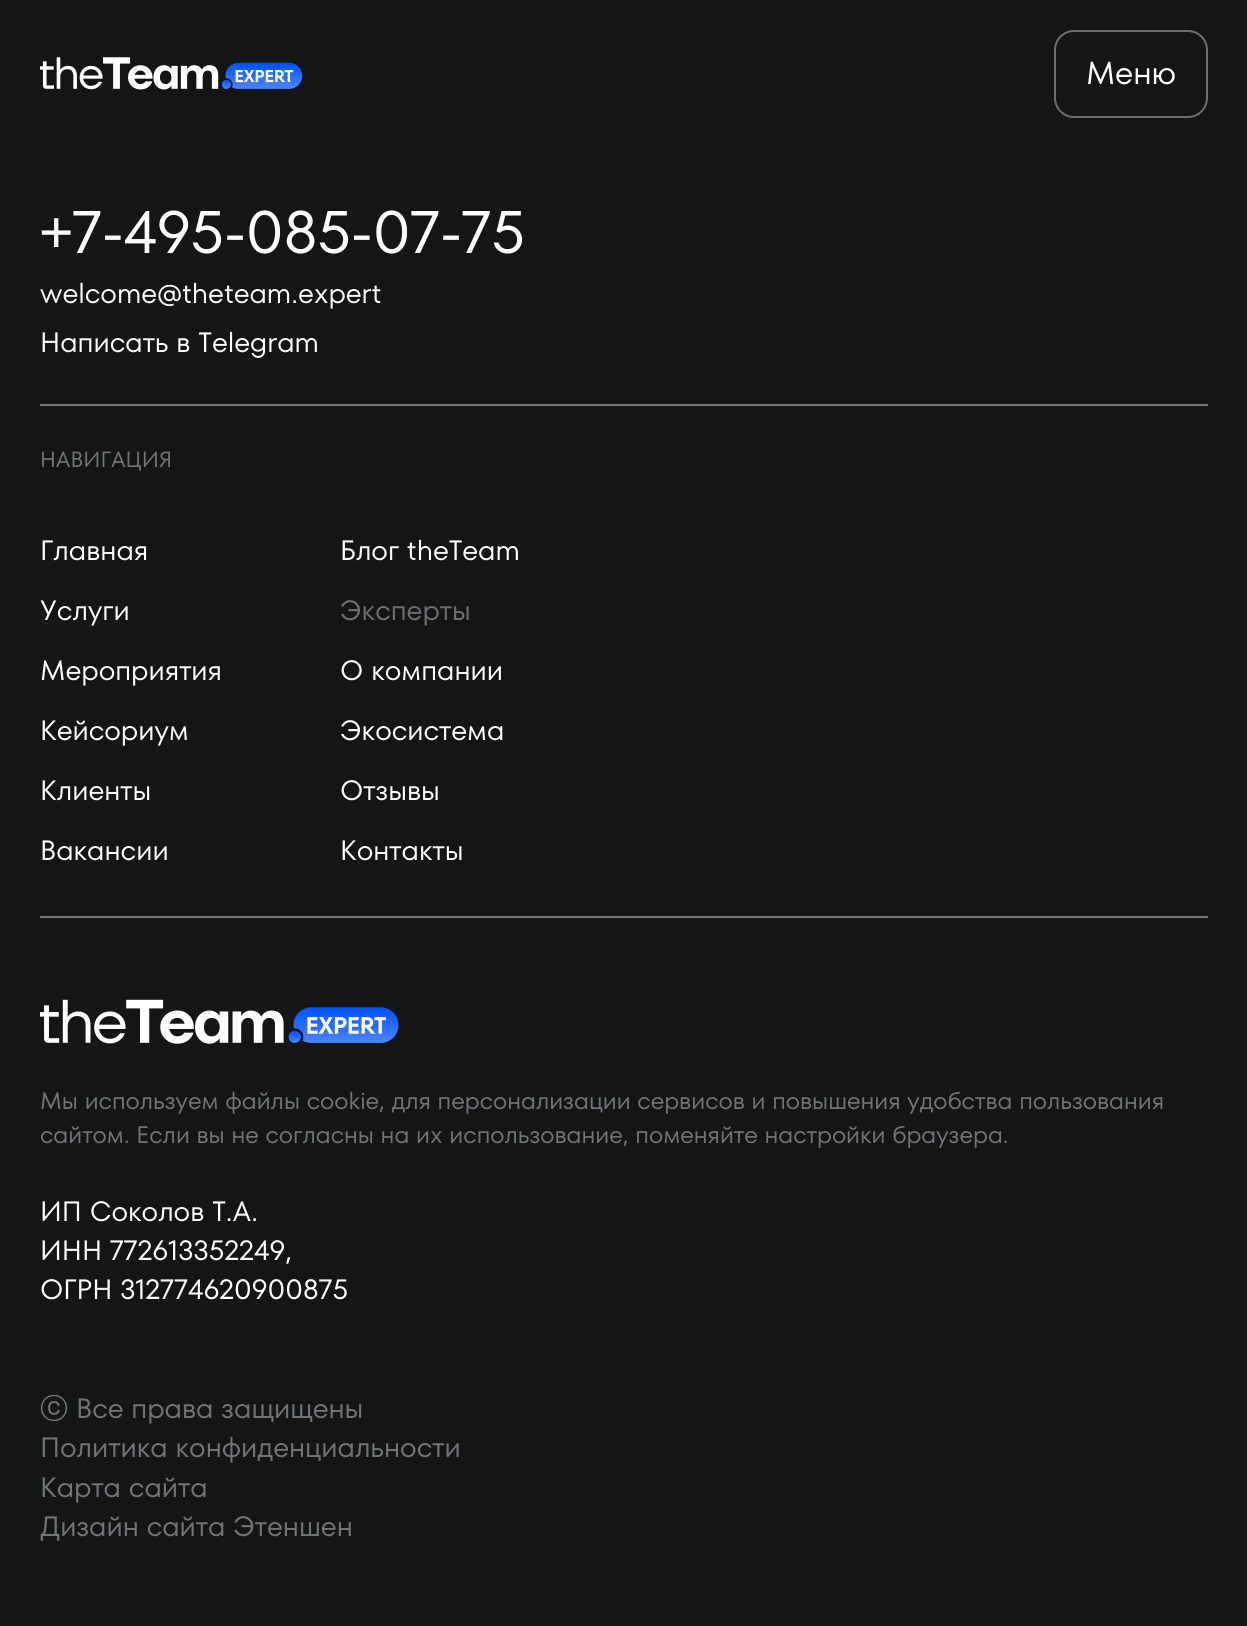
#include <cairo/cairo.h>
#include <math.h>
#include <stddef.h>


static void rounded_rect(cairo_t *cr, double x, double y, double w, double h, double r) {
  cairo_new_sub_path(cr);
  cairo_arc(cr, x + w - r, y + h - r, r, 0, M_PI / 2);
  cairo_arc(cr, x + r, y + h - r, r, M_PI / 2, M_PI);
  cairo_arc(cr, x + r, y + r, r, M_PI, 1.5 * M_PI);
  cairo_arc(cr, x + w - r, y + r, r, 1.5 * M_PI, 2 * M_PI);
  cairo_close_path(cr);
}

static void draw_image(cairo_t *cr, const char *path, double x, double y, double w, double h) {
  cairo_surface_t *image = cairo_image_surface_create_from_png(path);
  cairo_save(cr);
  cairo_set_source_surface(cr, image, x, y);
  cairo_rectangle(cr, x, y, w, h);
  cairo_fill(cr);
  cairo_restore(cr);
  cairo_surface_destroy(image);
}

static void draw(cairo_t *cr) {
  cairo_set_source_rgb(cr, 19 / 255.0, 21 / 255.0, 23 / 255.0);
  cairo_paint(cr);
  draw_image(cr, "images/1.png", 40, 57, 263, 33);
  rounded_rect(cr, 1055, 31, 152, 86, 19);
  cairo_set_source_rgb(cr, 108 / 255.0, 109 / 255.0, 110 / 255.0);
  cairo_stroke(cr);
  cairo_set_source_rgb(cr, 113 / 255.0, 115 / 255.0, 116 / 255.0);
  cairo_rectangle(cr, 40, 404, 1168, 2);
  cairo_fill(cr);
  cairo_rectangle(cr, 40, 916, 1168, 2);
  cairo_fill(cr);
  draw_image(cr, "images/2.png", 40, 999, 359, 45);
  cairo_select_font_face(cr, "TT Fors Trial", CAIRO_FONT_SLANT_NORMAL, CAIRO_FONT_WEIGHT_NORMAL);
  cairo_set_font_size(cr, 32);
  cairo_set_source_rgb(cr, 1, 1, 1);
  cairo_move_to(cr, 1086, 84);
  cairo_show_text(cr, "Меню");
  cairo_set_font_size(cr, 60);
  cairo_move_to(cr, 40, 253);
  cairo_show_text(cr, "+7-495-085-07-75");
  cairo_set_font_size(cr, 28);
  cairo_move_to(cr, 40, 303);
  cairo_show_text(cr, "welcome@theteam.expert");
  cairo_move_to(cr, 40, 352);
  cairo_show_text(cr, "Написать в Telegram");
  cairo_set_font_size(cr, 22);
  cairo_set_source_rgb(cr, 113 / 255.0, 115 / 255.0, 116 / 255.0);
  cairo_move_to(cr, 40, 467);
  cairo_show_text(cr, "НАВИГАЦИЯ");
  cairo_set_font_size(cr, 28);
  cairo_set_source_rgb(cr, 1, 1, 1);
  cairo_move_to(cr, 40, 560);
  cairo_show_text(cr, "Главная");
  cairo_move_to(cr, 40, 620);
  cairo_show_text(cr, "Услуги");
  cairo_move_to(cr, 40, 680);
  cairo_show_text(cr, "Мероприятия");
  cairo_move_to(cr, 40, 740);
  cairo_show_text(cr, "Кейсориум");
  cairo_move_to(cr, 40, 800);
  cairo_show_text(cr, "Клиенты");
  cairo_move_to(cr, 40, 860);
  cairo_show_text(cr, "Вакансии");
  cairo_move_to(cr, 340, 560);
  cairo_show_text(cr, "Блог theTeam");
  cairo_set_source_rgb(cr, 108 / 255.0, 109 / 255.0, 110 / 255.0);
  cairo_move_to(cr, 340, 620);
  cairo_show_text(cr, "Эксперты");
  cairo_set_source_rgb(cr, 1, 1, 1);
  cairo_move_to(cr, 340, 680);
  cairo_show_text(cr, "О компании");
  cairo_move_to(cr, 340, 740);
  cairo_show_text(cr, "Экосистема");
  cairo_move_to(cr, 340, 800);
  cairo_show_text(cr, "Отзывы");
  cairo_move_to(cr, 340, 860);
  cairo_show_text(cr, "Контакты");
  cairo_set_font_size(cr, 24);
  cairo_set_source_rgb(cr, 113 / 255.0, 115 / 255.0, 116 / 255.0);
  cairo_move_to(cr, 40, 1109);
  cairo_show_text(cr, "Мы используем файлы cookie, для персонализации сервисов и повышения удобства пользования");
  cairo_move_to(cr, 40, 1143);
  cairo_show_text(cr, "сайтом. Если вы не согласны на их использование, поменяйте настройки браузера.");
  cairo_set_font_size(cr, 28);
  cairo_set_source_rgb(cr, 1, 1, 1);
  cairo_move_to(cr, 40, 1221);
  cairo_show_text(cr, "ИП Соколов Т.А.");
  cairo_move_to(cr, 40, 1260);
  cairo_show_text(cr, "ИНН 772613352249,");
  cairo_move_to(cr, 40, 1299);
  cairo_show_text(cr, "ОГРН 312774620900875");
  cairo_select_font_face(cr, "WenQuanYi Zen Hei Medium", CAIRO_FONT_SLANT_NORMAL, CAIRO_FONT_WEIGHT_NORMAL);
  cairo_set_source_rgb(cr, 113 / 255.0, 115 / 255.0, 116 / 255.0);
  cairo_move_to(cr, 40, 1418);
  cairo_show_text(cr, "ⓒ");
  cairo_select_font_face(cr, "TT Fors Trial", CAIRO_FONT_SLANT_NORMAL, CAIRO_FONT_WEIGHT_NORMAL);
  cairo_move_to(cr, 76, 1418);
  cairo_show_text(cr, "Все права защищены");
  cairo_move_to(cr, 40, 1457);
  cairo_show_text(cr, "Политика конфиденциальности");
  cairo_move_to(cr, 40, 1497);
  cairo_show_text(cr, "Карта сайта");
  cairo_move_to(cr, 40, 1536);
  cairo_show_text(cr, "Дизайн сайта Этеншен");
}

int main(void) {
  cairo_surface_t *surface = cairo_image_surface_create(CAIRO_FORMAT_RGB24, 1247, 1626);
  cairo_t *cr = cairo_create(surface);
  cairo_font_options_t *options = cairo_font_options_create();
  cairo_font_options_set_hint_metrics(options, CAIRO_HINT_METRICS_OFF);
  cairo_font_options_set_hint_style(options, CAIRO_HINT_STYLE_NONE);
  cairo_set_font_options(cr, options);
  cairo_set_miter_limit(cr, 4);
  draw(cr);
  cairo_surface_write_to_png(surface, "out.png");
  cairo_font_options_destroy(options);
  cairo_destroy(cr);
  cairo_surface_destroy(surface);
  return 0;
}
